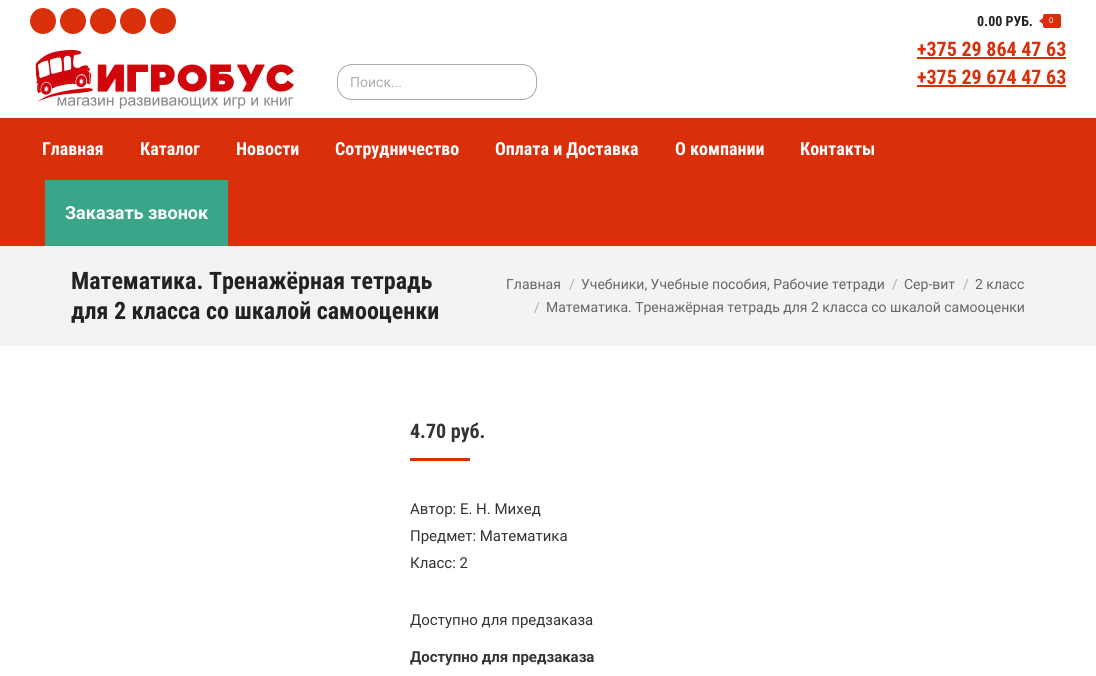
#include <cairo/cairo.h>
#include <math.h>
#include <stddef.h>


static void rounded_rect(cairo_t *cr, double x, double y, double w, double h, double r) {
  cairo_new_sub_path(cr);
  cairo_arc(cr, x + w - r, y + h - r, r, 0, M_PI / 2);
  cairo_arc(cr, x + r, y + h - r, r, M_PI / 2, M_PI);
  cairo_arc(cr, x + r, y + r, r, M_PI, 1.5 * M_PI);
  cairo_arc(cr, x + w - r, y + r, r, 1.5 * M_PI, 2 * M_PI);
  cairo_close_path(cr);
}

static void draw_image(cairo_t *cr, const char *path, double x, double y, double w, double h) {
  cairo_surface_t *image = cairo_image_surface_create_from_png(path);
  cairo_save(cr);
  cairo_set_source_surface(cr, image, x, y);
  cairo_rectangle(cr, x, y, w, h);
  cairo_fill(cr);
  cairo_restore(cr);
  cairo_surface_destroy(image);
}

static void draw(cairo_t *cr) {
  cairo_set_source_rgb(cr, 1, 1, 1);
  cairo_paint(cr);
  cairo_set_source_rgb(cr, 217 / 255.0, 47 / 255.0, 11 / 255.0);
  cairo_arc(cr, 43, 21, 13, 0, 2 * M_PI);
  cairo_fill(cr);
  cairo_arc(cr, 73, 21, 13, 0, 2 * M_PI);
  cairo_fill(cr);
  cairo_arc(cr, 103, 21, 13, 0, 2 * M_PI);
  cairo_fill(cr);
  cairo_arc(cr, 133, 21, 13, 0, 2 * M_PI);
  cairo_fill(cr);
  cairo_arc(cr, 163, 21, 13, 0, 2 * M_PI);
  cairo_fill(cr);
  rounded_rect(cr, 1043, 14, 18, 14, 2);
  cairo_fill(cr);
  cairo_new_path(cr);
  cairo_move_to(cr, 1043, 18);
  cairo_line_to(cr, 1043, 24);
  cairo_line_to(cr, 1039, 21);
  cairo_close_path(cr);
  cairo_fill(cr);
  draw_image(cr, "images/1.png", 35, 49, 259, 60);
  rounded_rect(cr, 337.5, 64.5, 199, 35, 14.5);
  cairo_set_source_rgb(cr, 170 / 255.0, 170 / 255.0, 170 / 255.0);
  cairo_set_line_width(cr, 1);
  cairo_stroke(cr);
  cairo_set_source_rgb(cr, 217 / 255.0, 47 / 255.0, 11 / 255.0);
  cairo_rectangle(cr, 917, 57, 149, 2);
  cairo_fill(cr);
  cairo_rectangle(cr, 917, 85, 149, 2);
  cairo_fill(cr);
  cairo_rectangle(cr, 0, 118, 1096, 128);
  cairo_fill(cr);
  cairo_set_source_rgb(cr, 59 / 255.0, 165 / 255.0, 137 / 255.0);
  cairo_rectangle(cr, 45, 180, 183, 66);
  cairo_fill(cr);
  cairo_set_source_rgb(cr, 243 / 255.0, 243 / 255.0, 245 / 255.0);
  cairo_rectangle(cr, 0, 246, 1096, 100);
  cairo_fill(cr);
  cairo_set_source_rgb(cr, 217 / 255.0, 47 / 255.0, 11 / 255.0);
  cairo_rectangle(cr, 410, 458, 60, 3);
  cairo_fill(cr);
  cairo_select_font_face(cr, "Roboto Condensed", CAIRO_FONT_SLANT_NORMAL, CAIRO_FONT_WEIGHT_BOLD);
  cairo_set_font_size(cr, 14);
  cairo_set_source_rgb(cr, 34 / 255.0, 34 / 255.0, 34 / 255.0);
  cairo_move_to(cr, 977, 26);
  cairo_show_text(cr, "0.00 РУБ.");
  cairo_select_font_face(cr, "Liberation Sans", CAIRO_FONT_SLANT_NORMAL, CAIRO_FONT_WEIGHT_NORMAL);
  cairo_set_font_size(cr, 8);
  cairo_set_source_rgb(cr, 1, 1, 1);
  cairo_move_to(cr, 1049, 23);
  cairo_show_text(cr, "0");
  cairo_select_font_face(cr, "Roboto", CAIRO_FONT_SLANT_NORMAL, CAIRO_FONT_WEIGHT_NORMAL);
  cairo_set_font_size(cr, 14);
  cairo_set_source_rgb(cr, 173 / 255.0, 173 / 255.0, 174 / 255.0);
  cairo_move_to(cr, 350, 87);
  cairo_show_text(cr, "Поиск...");
  cairo_select_font_face(cr, "Roboto Condensed", CAIRO_FONT_SLANT_NORMAL, CAIRO_FONT_WEIGHT_BOLD);
  cairo_set_font_size(cr, 20);
  cairo_set_source_rgb(cr, 217 / 255.0, 47 / 255.0, 11 / 255.0);
  cairo_move_to(cr, 917, 56);
  cairo_show_text(cr, "+375 29 864 47 63");
  cairo_move_to(cr, 917, 84);
  cairo_show_text(cr, "+375 29 674 47 63");
  cairo_set_font_size(cr, 18);
  cairo_set_source_rgb(cr, 1, 1, 1);
  cairo_move_to(cr, 42, 155);
  cairo_show_text(cr, "Главная");
  cairo_move_to(cr, 140, 155);
  cairo_show_text(cr, "Каталог");
  cairo_move_to(cr, 236, 155);
  cairo_show_text(cr, "Новоcти");
  cairo_move_to(cr, 335, 155);
  cairo_show_text(cr, "Сотрудничество");
  cairo_move_to(cr, 495, 155);
  cairo_show_text(cr, "Оплата и Доставка");
  cairo_move_to(cr, 675, 155);
  cairo_show_text(cr, "О компании");
  cairo_move_to(cr, 800, 155);
  cairo_show_text(cr, "Контакты");
  cairo_select_font_face(cr, "Roboto", CAIRO_FONT_SLANT_NORMAL, CAIRO_FONT_WEIGHT_BOLD);
  cairo_move_to(cr, 65, 219);
  cairo_show_text(cr, "Заказать звонок");
  cairo_select_font_face(cr, "Roboto Condensed", CAIRO_FONT_SLANT_NORMAL, CAIRO_FONT_WEIGHT_BOLD);
  cairo_set_font_size(cr, 24);
  cairo_set_source_rgb(cr, 34 / 255.0, 34 / 255.0, 34 / 255.0);
  cairo_move_to(cr, 71, 289);
  cairo_show_text(cr, "Математика. Тренажёрная тетрадь");
  cairo_move_to(cr, 71, 319);
  cairo_show_text(cr, "для 2 класса со шкалой самооценки");
  cairo_select_font_face(cr, "Roboto", CAIRO_FONT_SLANT_NORMAL, CAIRO_FONT_WEIGHT_NORMAL);
  cairo_set_font_size(cr, 14);
  cairo_set_source_rgb(cr, 102 / 255.0, 102 / 255.0, 102 / 255.0);
  cairo_move_to(cr, 506, 289);
  cairo_show_text(cr, "Главная");
  cairo_set_source_rgb(cr, 173 / 255.0, 173 / 255.0, 174 / 255.0);
  cairo_move_to(cr, 569, 289);
  cairo_show_text(cr, "/");
  cairo_set_source_rgb(cr, 102 / 255.0, 102 / 255.0, 102 / 255.0);
  cairo_move_to(cr, 581, 289);
  cairo_show_text(cr, "Учебники, Учебные пособия, Рабочие тетради");
  cairo_set_source_rgb(cr, 173 / 255.0, 173 / 255.0, 174 / 255.0);
  cairo_move_to(cr, 892, 289);
  cairo_show_text(cr, "/");
  cairo_set_source_rgb(cr, 102 / 255.0, 102 / 255.0, 102 / 255.0);
  cairo_move_to(cr, 904, 289);
  cairo_show_text(cr, "Сер-вит");
  cairo_set_source_rgb(cr, 173 / 255.0, 173 / 255.0, 174 / 255.0);
  cairo_move_to(cr, 963, 289);
  cairo_show_text(cr, "/");
  cairo_set_source_rgb(cr, 102 / 255.0, 102 / 255.0, 102 / 255.0);
  cairo_move_to(cr, 975, 289);
  cairo_show_text(cr, "2 класс");
  cairo_set_source_rgb(cr, 173 / 255.0, 173 / 255.0, 174 / 255.0);
  cairo_move_to(cr, 534, 312);
  cairo_show_text(cr, "/");
  cairo_set_source_rgb(cr, 102 / 255.0, 102 / 255.0, 102 / 255.0);
  cairo_move_to(cr, 546, 312);
  cairo_show_text(cr, "Математика. Тренажёрная тетрадь для 2 класса со шкалой самооценки");
  cairo_select_font_face(cr, "Roboto Condensed", CAIRO_FONT_SLANT_NORMAL, CAIRO_FONT_WEIGHT_BOLD);
  cairo_set_font_size(cr, 20);
  cairo_set_source_rgb(cr, 51 / 255.0, 51 / 255.0, 51 / 255.0);
  cairo_move_to(cr, 410, 438);
  cairo_show_text(cr, "4.70 руб.");
  cairo_select_font_face(cr, "Roboto", CAIRO_FONT_SLANT_NORMAL, CAIRO_FONT_WEIGHT_NORMAL);
  cairo_set_font_size(cr, 15);
  cairo_move_to(cr, 410, 514);
  cairo_show_text(cr, "Автор: Е. Н. Михед");
  cairo_move_to(cr, 410, 541);
  cairo_show_text(cr, "Предмет: Математика");
  cairo_move_to(cr, 410, 568);
  cairo_show_text(cr, "Класс: 2");
  cairo_move_to(cr, 410, 625);
  cairo_show_text(cr, "Доступно для предзаказа");
  cairo_select_font_face(cr, "Roboto", CAIRO_FONT_SLANT_NORMAL, CAIRO_FONT_WEIGHT_BOLD);
  cairo_move_to(cr, 410, 662);
  cairo_show_text(cr, "Доступно для предзаказа");
}

int main(void) {
  cairo_surface_t *surface = cairo_image_surface_create(CAIRO_FORMAT_RGB24, 1096, 676);
  cairo_t *cr = cairo_create(surface);
  cairo_font_options_t *options = cairo_font_options_create();
  cairo_font_options_set_hint_metrics(options, CAIRO_HINT_METRICS_OFF);
  cairo_font_options_set_hint_style(options, CAIRO_HINT_STYLE_NONE);
  cairo_set_font_options(cr, options);
  cairo_set_miter_limit(cr, 4);
  draw(cr);
  cairo_surface_write_to_png(surface, "out.png");
  cairo_font_options_destroy(options);
  cairo_destroy(cr);
  cairo_surface_destroy(surface);
  return 0;
}
